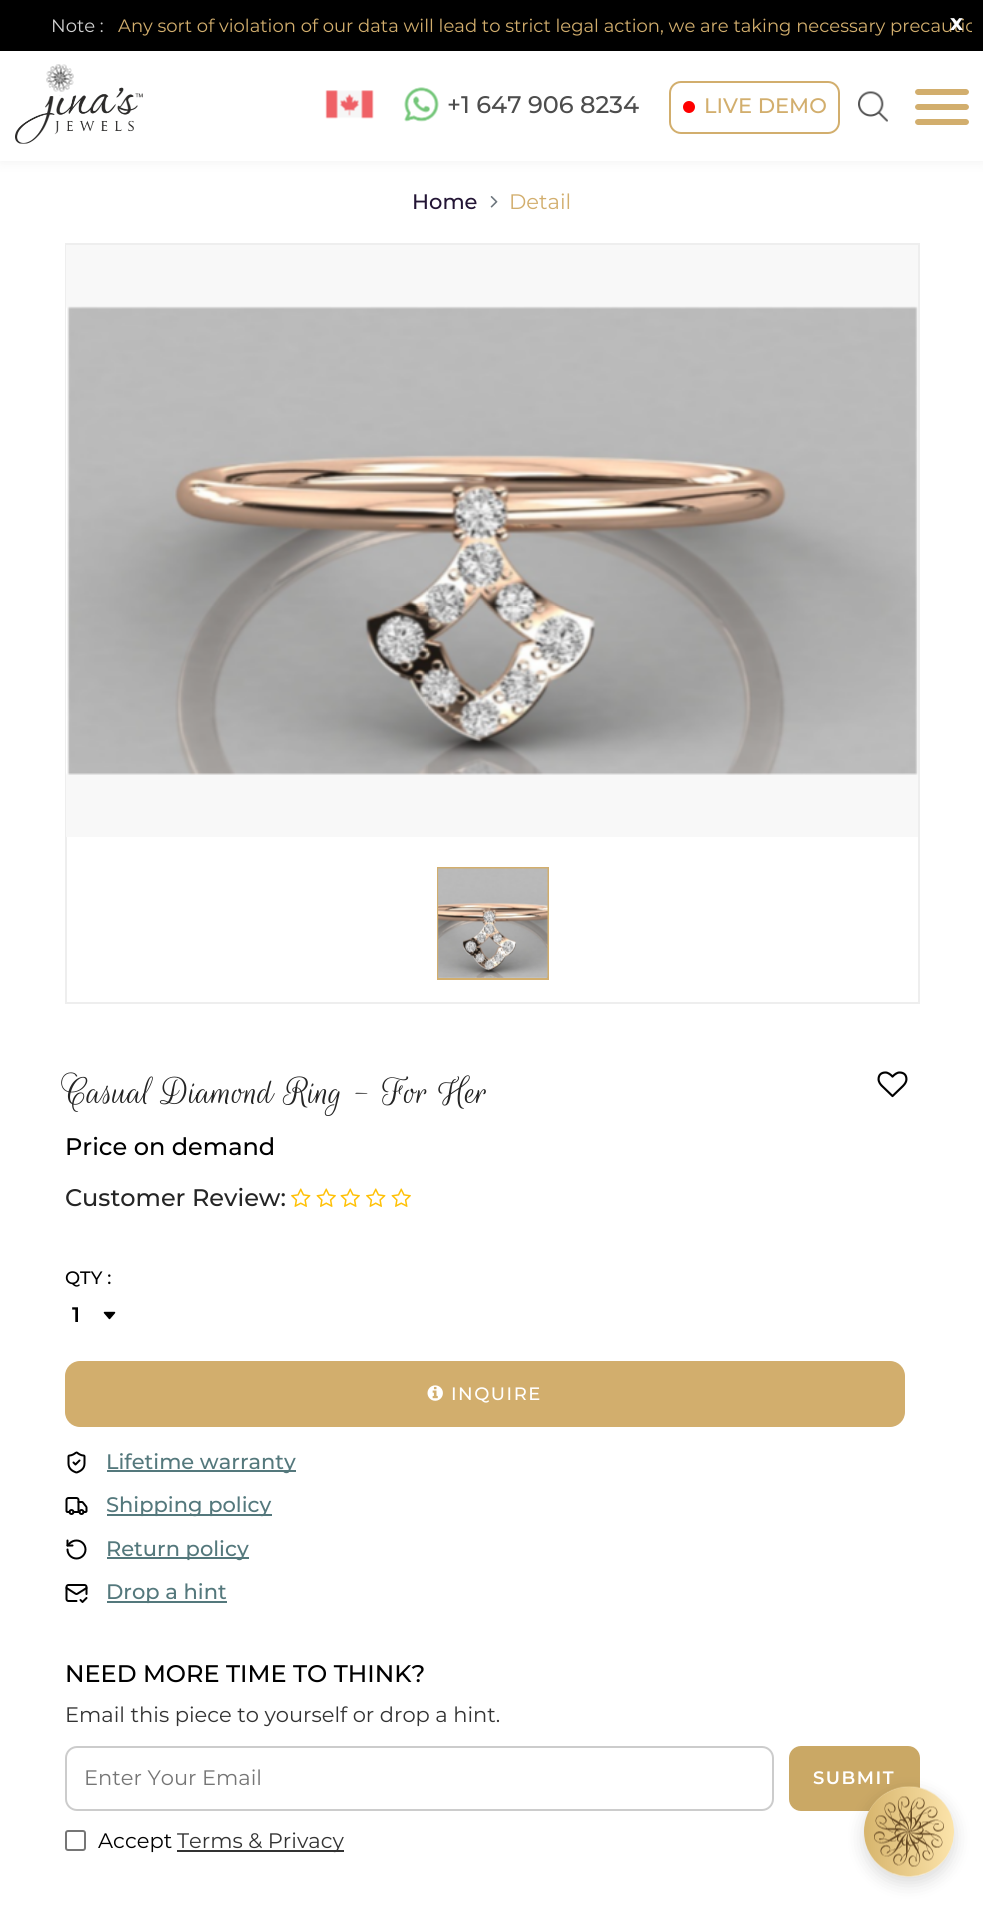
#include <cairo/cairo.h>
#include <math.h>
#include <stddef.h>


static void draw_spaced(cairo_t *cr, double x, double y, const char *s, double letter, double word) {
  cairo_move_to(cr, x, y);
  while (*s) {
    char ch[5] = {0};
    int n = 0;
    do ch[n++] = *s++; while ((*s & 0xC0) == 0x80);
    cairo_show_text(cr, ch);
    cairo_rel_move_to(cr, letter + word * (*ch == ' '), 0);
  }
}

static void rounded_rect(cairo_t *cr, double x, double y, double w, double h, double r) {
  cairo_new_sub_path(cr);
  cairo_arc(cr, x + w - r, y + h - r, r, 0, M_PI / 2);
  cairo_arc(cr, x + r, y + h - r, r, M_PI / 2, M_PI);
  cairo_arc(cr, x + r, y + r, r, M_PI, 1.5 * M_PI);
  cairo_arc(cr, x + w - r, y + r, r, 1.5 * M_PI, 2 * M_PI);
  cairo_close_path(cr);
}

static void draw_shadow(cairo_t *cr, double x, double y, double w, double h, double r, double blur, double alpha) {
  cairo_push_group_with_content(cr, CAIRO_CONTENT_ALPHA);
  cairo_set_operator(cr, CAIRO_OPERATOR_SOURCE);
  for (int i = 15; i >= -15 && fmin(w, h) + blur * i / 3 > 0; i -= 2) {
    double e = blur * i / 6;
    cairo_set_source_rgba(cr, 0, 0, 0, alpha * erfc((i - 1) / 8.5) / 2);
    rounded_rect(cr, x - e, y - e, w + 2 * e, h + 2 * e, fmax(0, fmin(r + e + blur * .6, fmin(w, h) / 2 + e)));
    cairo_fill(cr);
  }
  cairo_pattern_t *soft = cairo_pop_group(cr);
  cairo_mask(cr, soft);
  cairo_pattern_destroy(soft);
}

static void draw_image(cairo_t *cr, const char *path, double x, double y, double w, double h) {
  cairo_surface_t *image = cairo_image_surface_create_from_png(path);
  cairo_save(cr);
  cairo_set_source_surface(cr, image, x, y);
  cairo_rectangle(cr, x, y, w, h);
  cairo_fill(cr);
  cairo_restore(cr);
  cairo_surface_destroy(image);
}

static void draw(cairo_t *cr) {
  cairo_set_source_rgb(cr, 1, 1, 1);
  cairo_paint(cr);
  cairo_set_source_rgb(cr, 0, 0, 0);
  cairo_rectangle(cr, 0, 0, 983, 51);
  cairo_fill(cr);
  cairo_set_source_rgb(cr, 0, 0, 0);
  draw_shadow(cr, 0, 51, 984, 110, 0, 7.5, 0.06);
  cairo_set_source_rgb(cr, 1, 1, 1);
  cairo_rectangle(cr, 0, 51, 983, 110);
  cairo_fill(cr);
  draw_image(cr, "images/1.png", 46, 64, 28, 28);
  draw_image(cr, "images/2.png", 15, 87, 128, 57);
  draw_image(cr, "images/3.png", 325, 90, 49, 29);
  draw_image(cr, "images/4.png", 404, 87, 35, 35);
  rounded_rect(cr, 670, 82, 169, 51, 11);
  cairo_set_source_rgb(cr, 210 / 255.0, 174 / 255.0, 109 / 255.0);
  cairo_stroke(cr);
  cairo_set_source_rgb(cr, 1, 0, 0);
  cairo_arc(cr, 689, 107, 6, 0, 2 * M_PI);
  cairo_fill(cr);
  draw_image(cr, "images/5.png", 858, 91, 30, 31);
  cairo_set_source_rgb(cr, 210 / 255.0, 174 / 255.0, 109 / 255.0);
  cairo_new_path(cr);
  cairo_move_to(cr, 918, 89);
  cairo_line_to(cr, 942, 89);
  cairo_line_to(cr, 942, 95);
  cairo_line_to(cr, 918, 95);
  cairo_curve_to(cr, 916.5, 95, 915, 93.5, 915, 92);
  cairo_curve_to(cr, 915, 90.5, 916.5, 89, 918, 89);
  cairo_close_path(cr);
  cairo_fill(cr);
  cairo_new_path(cr);
  cairo_move_to(cr, 942, 89);
  cairo_line_to(cr, 966, 89);
  cairo_curve_to(cr, 967.5, 89, 969, 90.5, 969, 92);
  cairo_curve_to(cr, 969, 93.5, 967.5, 95, 966, 95);
  cairo_line_to(cr, 942, 95);
  cairo_close_path(cr);
  cairo_fill(cr);
  cairo_new_path(cr);
  cairo_move_to(cr, 918, 104);
  cairo_line_to(cr, 942, 104);
  cairo_line_to(cr, 942, 110);
  cairo_line_to(cr, 918, 110);
  cairo_curve_to(cr, 916.5, 110, 915, 108.5, 915, 107);
  cairo_curve_to(cr, 915, 105.5, 916.5, 104, 918, 104);
  cairo_close_path(cr);
  cairo_fill(cr);
  cairo_new_path(cr);
  cairo_move_to(cr, 942, 104);
  cairo_line_to(cr, 966, 104);
  cairo_curve_to(cr, 967.5, 104, 969, 105.5, 969, 107);
  cairo_curve_to(cr, 969, 108.5, 967.5, 110, 966, 110);
  cairo_line_to(cr, 942, 110);
  cairo_close_path(cr);
  cairo_fill(cr);
  cairo_new_path(cr);
  cairo_move_to(cr, 918, 119);
  cairo_line_to(cr, 942, 119);
  cairo_line_to(cr, 942, 125);
  cairo_line_to(cr, 918, 125);
  cairo_curve_to(cr, 916.5, 125, 915, 123.5, 915, 122);
  cairo_curve_to(cr, 915, 120.5, 916.5, 119, 918, 119);
  cairo_close_path(cr);
  cairo_fill(cr);
  cairo_new_path(cr);
  cairo_move_to(cr, 942, 119);
  cairo_line_to(cr, 966, 119);
  cairo_curve_to(cr, 967.5, 119, 969, 120.5, 969, 122);
  cairo_curve_to(cr, 969, 123.5, 967.5, 125, 966, 125);
  cairo_line_to(cr, 942, 125);
  cairo_close_path(cr);
  cairo_fill(cr);
  draw_image(cr, "images/6.png", 490, 196, 8, 12);
  cairo_rectangle(cr, 66, 244, 853, 759);
  cairo_set_source_rgb(cr, 238 / 255.0, 238 / 255.0, 238 / 255.0);
  cairo_stroke(cr);
  cairo_set_source_rgb(cr, 248 / 255.0, 248 / 255.0, 248 / 255.0);
  cairo_rectangle(cr, 66, 245, 852, 592);
  cairo_fill(cr);
  draw_image(cr, "images/7.png", 66, 306, 852, 469);
  cairo_rectangle(cr, 438, 868, 110, 111);
  cairo_set_source_rgb(cr, 210 / 255.0, 174 / 255.0, 109 / 255.0);
  cairo_stroke(cr);
  draw_image(cr, "images/8.png", 438, 868, 110, 110);
  draw_image(cr, "images/9.png", 877, 1071, 31, 27);
  draw_image(cr, "images/10.png", 291, 1188, 20, 19);
  draw_image(cr, "images/11.png", 316, 1188, 20, 19);
  draw_image(cr, "images/11.png", 340, 1188, 20, 19);
  draw_image(cr, "images/10.png", 366, 1188, 20, 19);
  draw_image(cr, "images/11.png", 391, 1188, 20, 19);
  draw_image(cr, "images/12.png", 103, 1311, 13, 9);
  rounded_rect(cr, 65, 1361, 840, 66, 15);
  cairo_fill(cr);
  draw_image(cr, "images/13.png", 427, 1385, 16, 16);
  draw_image(cr, "images/14.png", 67, 1451, 19, 23);
  cairo_set_source_rgb(cr, 84 / 255.0, 120 / 255.0, 124 / 255.0);
  cairo_rectangle(cr, 107, 1470, 189, 2);
  cairo_fill(cr);
  draw_image(cr, "images/15.png", 65, 1497, 23, 18);
  cairo_rectangle(cr, 107, 1514, 165, 2);
  cairo_fill(cr);
  draw_image(cr, "images/16.png", 66, 1539, 21, 21);
  cairo_rectangle(cr, 107, 1557, 142, 2);
  cairo_fill(cr);
  draw_image(cr, "images/17.png", 65, 1584, 23, 19);
  cairo_rectangle(cr, 107, 1601, 120, 2);
  cairo_fill(cr);
  rounded_rect(cr, 66, 1747, 707, 63, 11);
  cairo_set_source_rgb(cr, 204 / 255.0, 204 / 255.0, 204 / 255.0);
  cairo_stroke(cr);
  cairo_set_source_rgb(cr, 202 / 255.0, 168 / 255.0, 101 / 255.0);
  rounded_rect(cr, 789, 1746, 131, 65, 12);
  cairo_fill(cr);
  rounded_rect(cr, 66, 1831, 19, 19, 2);
  cairo_set_source_rgb(cr, 118 / 255.0, 118 / 255.0, 118 / 255.0);
  cairo_stroke(cr);
  cairo_set_source_rgb(cr, 51 / 255.0, 51 / 255.0, 51 / 255.0);
  cairo_rectangle(cr, 177, 1850, 167, 2);
  cairo_fill(cr);
  cairo_set_source_rgb(cr, 0, 0, 0);
  draw_shadow(cr, 864, 1793, 90, 90, 45, 9, 0.15);
  cairo_set_source_rgb(cr, 245 / 255.0, 245 / 255.0, 245 / 255.0);
  cairo_arc(cr, 909, 1832, 45, 0, 2 * M_PI);
  cairo_fill(cr);
  draw_image(cr, "images/18.png", 864, 1786, 90, 91);
  cairo_select_font_face(cr, "Montserrat", CAIRO_FONT_SLANT_NORMAL, CAIRO_FONT_WEIGHT_NORMAL);
  cairo_set_font_size(cr, 18);
  cairo_set_source_rgb(cr, 209 / 255.0, 209 / 255.0, 209 / 255.0);
  cairo_move_to(cr, 51, 32);
  cairo_show_text(cr, "Note :");
  cairo_save(cr);
  cairo_rectangle(cr, 12, 12, 960, 27);
  cairo_clip(cr);
  cairo_set_source_rgb(cr, 210 / 255.0, 174 / 255.0, 109 / 255.0);
  cairo_move_to(cr, 118, 32);
  cairo_show_text(cr, "Any sort of violation of our data will lead to strict legal action, we are taking necessary precautio");
  cairo_restore(cr);
  cairo_select_font_face(cr, "Montserrat", CAIRO_FONT_SLANT_NORMAL, CAIRO_FONT_WEIGHT_BOLD);
  cairo_set_font_size(cr, 22);
  cairo_set_source_rgb(cr, 1, 1, 1);
  cairo_move_to(cr, 950, 30);
  cairo_show_text(cr, "x");
  cairo_select_font_face(cr, "Montserrat Medium", CAIRO_FONT_SLANT_NORMAL, CAIRO_FONT_WEIGHT_NORMAL);
  cairo_set_font_size(cr, 24);
  cairo_set_source_rgb(cr, 77 / 255.0, 77 / 255.0, 77 / 255.0);
  cairo_move_to(cr, 447, 113);
  cairo_show_text(cr, "+1 647 906 8234");
  cairo_set_font_size(cr, 21);
  cairo_set_source_rgb(cr, 210 / 255.0, 174 / 255.0, 109 / 255.0);
  cairo_move_to(cr, 704, 113);
  cairo_show_text(cr, "LIVE DEMO");
  cairo_set_source_rgb(cr, 35 / 255.0, 21 / 255.0, 53 / 255.0);
  cairo_move_to(cr, 412, 209);
  cairo_show_text(cr, "Home");
  cairo_select_font_face(cr, "Montserrat", CAIRO_FONT_SLANT_NORMAL, CAIRO_FONT_WEIGHT_NORMAL);
  cairo_set_source_rgb(cr, 210 / 255.0, 174 / 255.0, 109 / 255.0);
  cairo_move_to(cr, 509, 209);
  cairo_show_text(cr, "Detail");
  cairo_select_font_face(cr, "Rouge Script", CAIRO_FONT_SLANT_NORMAL, CAIRO_FONT_WEIGHT_NORMAL);
  cairo_set_font_size(cr, 40.75);
  cairo_set_source_rgb(cr, 37 / 255.0, 37 / 255.0, 37 / 255.0);
  cairo_move_to(cr, 65, 1103);
  cairo_show_text(cr, "Casual Diamond Ring - For Her");
  cairo_select_font_face(cr, "Montserrat Medium", CAIRO_FONT_SLANT_NORMAL, CAIRO_FONT_WEIGHT_NORMAL);
  cairo_set_font_size(cr, 24);
  cairo_set_source_rgb(cr, 0, 0, 0);
  cairo_move_to(cr, 65, 1155);
  cairo_show_text(cr, "Price on demand");
  cairo_set_source_rgb(cr, 37 / 255.0, 37 / 255.0, 37 / 255.0);
  cairo_move_to(cr, 65, 1206);
  cairo_show_text(cr, "Customer Review:");
  cairo_set_font_size(cr, 18);
  cairo_set_source_rgb(cr, 0, 0, 0);
  cairo_move_to(cr, 65, 1284);
  cairo_show_text(cr, "QTY :");
  cairo_select_font_face(cr, "Montserrat SemiBold", CAIRO_FONT_SLANT_NORMAL, CAIRO_FONT_WEIGHT_NORMAL);
  cairo_set_font_size(cr, 21);
  cairo_move_to(cr, 72, 1322);
  cairo_show_text(cr, "1");
  cairo_select_font_face(cr, "Montserrat Medium", CAIRO_FONT_SLANT_NORMAL, CAIRO_FONT_WEIGHT_NORMAL);
  cairo_set_font_size(cr, 18);
  cairo_set_source_rgb(cr, 1, 1, 1);
  draw_spaced(cr, 451, 1400, "INQUIRE", 1.5, 0);
  cairo_set_font_size(cr, 21);
  cairo_set_source_rgb(cr, 84 / 255.0, 120 / 255.0, 124 / 255.0);
  cairo_move_to(cr, 106, 1469);
  cairo_show_text(cr, "Lifetime warranty");
  cairo_move_to(cr, 106, 1512);
  cairo_show_text(cr, "Shipping policy");
  cairo_move_to(cr, 106, 1556);
  cairo_show_text(cr, "Return policy");
  cairo_move_to(cr, 106, 1599);
  cairo_show_text(cr, "Drop a hint");
  cairo_set_font_size(cr, 24);
  cairo_set_source_rgb(cr, 0, 0, 0);
  cairo_move_to(cr, 65, 1682);
  cairo_show_text(cr, "NEED MORE TIME TO THINK?");
  cairo_select_font_face(cr, "Montserrat", CAIRO_FONT_SLANT_NORMAL, CAIRO_FONT_WEIGHT_NORMAL);
  cairo_set_font_size(cr, 21);
  cairo_set_source_rgb(cr, 51 / 255.0, 51 / 255.0, 51 / 255.0);
  cairo_move_to(cr, 65, 1722);
  cairo_show_text(cr, "Email this piece to yourself or drop a hint.");
  cairo_set_source_rgb(cr, 117 / 255.0, 117 / 255.0, 117 / 255.0);
  cairo_move_to(cr, 84, 1785);
  cairo_show_text(cr, "Enter Your Email");
  cairo_select_font_face(cr, "Montserrat SemiBold", CAIRO_FONT_SLANT_NORMAL, CAIRO_FONT_WEIGHT_NORMAL);
  cairo_set_font_size(cr, 18);
  cairo_set_source_rgb(cr, 1, 1, 1);
  draw_spaced(cr, 813, 1784, "SUBMIT", 1.5, 0);
  cairo_select_font_face(cr, "Montserrat", CAIRO_FONT_SLANT_NORMAL, CAIRO_FONT_WEIGHT_NORMAL);
  cairo_set_font_size(cr, 21);
  cairo_set_source_rgb(cr, 0, 0, 0);
  cairo_move_to(cr, 98, 1848);
  cairo_show_text(cr, "Accept");
  cairo_set_source_rgb(cr, 51 / 255.0, 51 / 255.0, 51 / 255.0);
  cairo_move_to(cr, 177, 1848);
  cairo_show_text(cr, "Terms & Privacy");
}

int main(void) {
  cairo_surface_t *surface = cairo_image_surface_create(CAIRO_FORMAT_RGB24, 983, 1906);
  cairo_t *cr = cairo_create(surface);
  cairo_font_options_t *options = cairo_font_options_create();
  cairo_font_options_set_hint_metrics(options, CAIRO_HINT_METRICS_OFF);
  cairo_font_options_set_hint_style(options, CAIRO_HINT_STYLE_NONE);
  cairo_set_font_options(cr, options);
  cairo_set_miter_limit(cr, 4);
  draw(cr);
  cairo_surface_write_to_png(surface, "out.png");
  cairo_font_options_destroy(options);
  cairo_destroy(cr);
  cairo_surface_destroy(surface);
  return 0;
}
